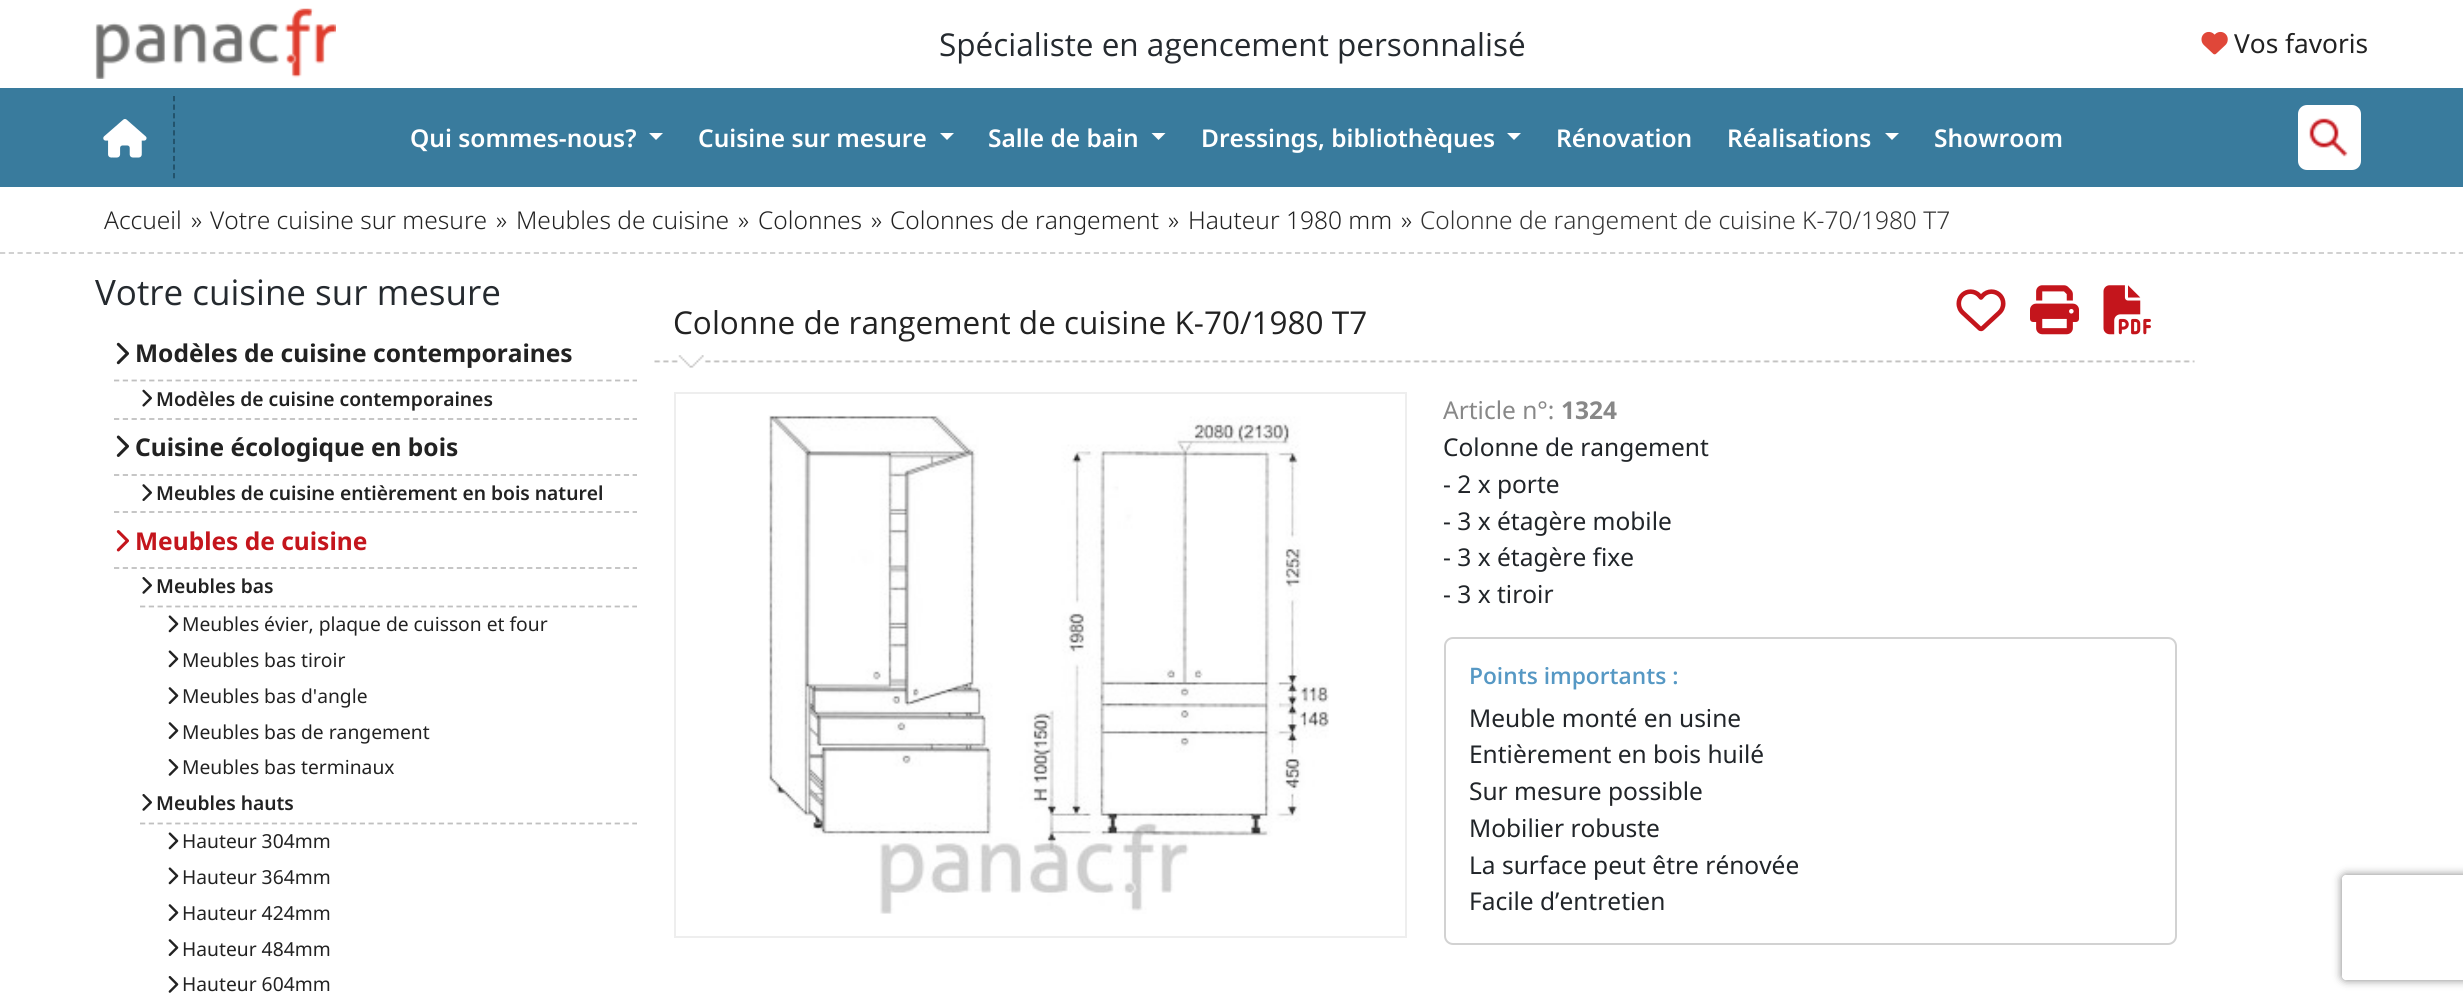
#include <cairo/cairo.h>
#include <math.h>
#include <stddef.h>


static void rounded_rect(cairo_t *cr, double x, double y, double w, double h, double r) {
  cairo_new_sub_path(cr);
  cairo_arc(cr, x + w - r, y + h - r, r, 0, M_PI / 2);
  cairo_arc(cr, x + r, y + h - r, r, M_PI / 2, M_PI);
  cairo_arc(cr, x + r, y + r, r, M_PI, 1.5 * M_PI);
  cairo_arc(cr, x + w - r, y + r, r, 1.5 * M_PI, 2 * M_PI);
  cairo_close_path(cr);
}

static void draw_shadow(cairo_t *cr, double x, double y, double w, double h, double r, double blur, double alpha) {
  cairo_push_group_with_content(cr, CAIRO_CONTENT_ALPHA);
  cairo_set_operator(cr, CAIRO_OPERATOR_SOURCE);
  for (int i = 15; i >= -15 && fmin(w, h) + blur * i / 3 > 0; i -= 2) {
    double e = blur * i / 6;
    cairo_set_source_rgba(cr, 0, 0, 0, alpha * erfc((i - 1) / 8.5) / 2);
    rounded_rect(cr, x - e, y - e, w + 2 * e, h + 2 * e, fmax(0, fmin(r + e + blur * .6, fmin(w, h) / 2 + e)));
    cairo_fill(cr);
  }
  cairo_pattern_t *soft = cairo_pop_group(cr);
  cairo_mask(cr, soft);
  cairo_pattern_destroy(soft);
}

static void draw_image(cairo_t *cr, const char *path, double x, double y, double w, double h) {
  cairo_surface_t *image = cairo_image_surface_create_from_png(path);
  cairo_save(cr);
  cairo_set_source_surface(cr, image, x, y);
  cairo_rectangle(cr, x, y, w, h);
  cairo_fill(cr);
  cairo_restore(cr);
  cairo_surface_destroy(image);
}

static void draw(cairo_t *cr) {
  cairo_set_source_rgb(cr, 1, 1, 1);
  cairo_paint(cr);
  draw_image(cr, "images/1.png", 95, 8, 241, 71);
  draw_image(cr, "images/2.png", 2201, 31, 27, 24);
  cairo_set_source_rgb(cr, 57 / 255.0, 123 / 255.0, 157 / 255.0);
  cairo_rectangle(cr, 0, 88, 2463, 99);
  cairo_fill(cr);
  cairo_new_path(cr);
  cairo_move_to(cr, 174, 96);
  cairo_line_to(cr, 174, 178.5);
  cairo_set_source_rgb(cr, 32 / 255.0, 79 / 255.0, 103 / 255.0);
  cairo_set_line_width(cr, 1.8);
  cairo_set_dash(cr, (double[]){5.25, 3.31}, 2, 0);
  cairo_stroke(cr);
  draw_image(cr, "images/3.png", 103, 119, 44, 39);
  cairo_set_source_rgb(cr, 1, 1, 1);
  cairo_new_path(cr);
  cairo_move_to(cr, 649, 133);
  cairo_line_to(cr, 663, 133);
  cairo_line_to(cr, 656, 140);
  cairo_close_path(cr);
  cairo_fill(cr);
  cairo_new_path(cr);
  cairo_move_to(cr, 940, 133);
  cairo_line_to(cr, 954, 133);
  cairo_line_to(cr, 947, 140);
  cairo_close_path(cr);
  cairo_fill(cr);
  cairo_new_path(cr);
  cairo_move_to(cr, 1151.5, 133);
  cairo_line_to(cr, 1165.5, 133);
  cairo_line_to(cr, 1158.5, 140);
  cairo_close_path(cr);
  cairo_fill(cr);
  cairo_new_path(cr);
  cairo_move_to(cr, 1507, 133);
  cairo_line_to(cr, 1521, 133);
  cairo_line_to(cr, 1514, 140);
  cairo_close_path(cr);
  cairo_fill(cr);
  cairo_new_path(cr);
  cairo_move_to(cr, 1885, 133);
  cairo_line_to(cr, 1899, 133);
  cairo_line_to(cr, 1892, 140);
  cairo_close_path(cr);
  cairo_fill(cr);
  rounded_rect(cr, 2298, 105, 63, 65, 9);
  cairo_fill(cr);
  draw_image(cr, "images/4.png", 2309, 118, 39, 39);
  cairo_new_path(cr);
  cairo_move_to(cr, 0, 253);
  cairo_line_to(cr, 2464, 253);
  cairo_set_source_rgb(cr, 204 / 255.0, 204 / 255.0, 204 / 255.0);
  cairo_set_dash(cr, (double[]){5.25, 3.5}, 2, 0);
  cairo_stroke(cr);
  cairo_new_path(cr);
  cairo_move_to(cr, 114, 419);
  cairo_line_to(cr, 637, 419);
  cairo_set_source_rgb(cr, 192 / 255.0, 192 / 255.0, 192 / 255.0);
  cairo_set_dash(cr, (double[]){5.25, 3.54}, 2, 0);
  cairo_stroke(cr);
  draw_image(cr, "images/5.png", 116, 342, 13, 23);
  cairo_new_path(cr);
  cairo_move_to(cr, 114, 380.5);
  cairo_line_to(cr, 637, 380.5);
  cairo_stroke(cr);
  draw_image(cr, "images/6.png", 142, 389, 10, 18);
  cairo_new_path(cr);
  cairo_move_to(cr, 114, 512);
  cairo_line_to(cr, 637, 512);
  cairo_stroke(cr);
  draw_image(cr, "images/7.png", 116, 435, 13, 22);
  cairo_new_path(cr);
  cairo_move_to(cr, 114, 475);
  cairo_line_to(cr, 637, 475);
  cairo_stroke(cr);
  draw_image(cr, "images/8.png", 142, 484, 10, 17);
  draw_image(cr, "images/9.png", 116, 530, 13, 22);
  cairo_new_path(cr);
  cairo_move_to(cr, 114, 568);
  cairo_line_to(cr, 637, 568);
  cairo_stroke(cr);
  draw_image(cr, "images/10.png", 142, 577, 10, 17);
  cairo_new_path(cr);
  cairo_move_to(cr, 140, 606.5);
  cairo_line_to(cr, 637, 606.5);
  cairo_stroke(cr);
  draw_image(cr, "images/11.png", 168, 615, 11, 18);
  draw_image(cr, "images/11.png", 168, 650, 11, 18);
  draw_image(cr, "images/12.png", 168, 687, 11, 17);
  draw_image(cr, "images/12.png", 168, 722, 11, 17);
  draw_image(cr, "images/13.png", 168, 759, 11, 17);
  draw_image(cr, "images/10.png", 142, 794, 10, 17);
  cairo_new_path(cr);
  cairo_move_to(cr, 140, 823.5);
  cairo_line_to(cr, 637, 823.5);
  cairo_stroke(cr);
  draw_image(cr, "images/11.png", 168, 832, 11, 18);
  draw_image(cr, "images/11.png", 168, 867, 11, 18);
  draw_image(cr, "images/12.png", 168, 904, 11, 17);
  draw_image(cr, "images/12.png", 168, 939, 11, 17);
  draw_image(cr, "images/13.png", 168, 976, 11, 17);
  draw_image(cr, "images/14.png", 654, 355, 1541, 13);
  draw_image(cr, "images/15.png", 1956, 289, 50, 43);
  draw_image(cr, "images/16.png", 2030, 285, 49, 50);
  draw_image(cr, "images/17.png", 2103, 285, 48, 50);
  cairo_rectangle(cr, 675, 393, 731, 544);
  cairo_set_source_rgb(cr, 238 / 255.0, 238 / 255.0, 238 / 255.0);
  cairo_set_line_width(cr, 2);
  cairo_set_dash(cr, NULL, 0, 0);
  cairo_stroke(cr);
  draw_image(cr, "images/18.png", 768, 415, 561, 499);
  rounded_rect(cr, 1445, 638, 731, 306, 8);
  cairo_set_source_rgb(cr, 210 / 255.0, 210 / 255.0, 210 / 255.0);
  cairo_stroke(cr);
  cairo_save(cr);
  cairo_set_fill_rule(cr, CAIRO_FILL_RULE_EVEN_ODD);
  cairo_new_path(cr);
  cairo_move_to(cr, 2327, 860);
  cairo_line_to(cr, 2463, 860);
  cairo_line_to(cr, 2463, 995);
  cairo_line_to(cr, 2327, 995);
  cairo_close_path(cr);
  cairo_move_to(cr, 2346, 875);
  cairo_line_to(cr, 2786, 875);
  cairo_curve_to(cr, 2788, 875, 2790, 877, 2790, 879);
  cairo_line_to(cr, 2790, 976);
  cairo_curve_to(cr, 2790, 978, 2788, 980, 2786, 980);
  cairo_line_to(cr, 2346, 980);
  cairo_curve_to(cr, 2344, 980, 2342, 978, 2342, 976);
  cairo_line_to(cr, 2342, 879);
  cairo_curve_to(cr, 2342, 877, 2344, 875, 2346, 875);
  cairo_close_path(cr);
  cairo_clip(cr);
  cairo_set_source_rgb(cr, 128 / 255.0, 128 / 255.0, 128 / 255.0);
  draw_shadow(cr, 2342, 875, 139, 105, 4, 4.5, 1);
  cairo_restore(cr);
  cairo_select_font_face(cr, "Open Sans", CAIRO_FONT_SLANT_NORMAL, CAIRO_FONT_WEIGHT_NORMAL);
  cairo_set_font_size(cr, 31.5);
  cairo_set_source_rgb(cr, 37 / 255.0, 42 / 255.0, 47 / 255.0);
  cairo_move_to(cr, 939, 56);
  cairo_show_text(cr, "Spécialiste en agencement personnalisé");
  cairo_select_font_face(cr, "Noto Sans", CAIRO_FONT_SLANT_NORMAL, CAIRO_FONT_WEIGHT_NORMAL);
  cairo_set_font_size(cr, 26.25);
  cairo_set_source_rgb(cr, 34 / 255.0, 34 / 255.0, 34 / 255.0);
  cairo_move_to(cr, 2234, 53);
  cairo_show_text(cr, "Vos favoris");
  cairo_select_font_face(cr, "Noto Sans SemiBold", CAIRO_FONT_SLANT_NORMAL, CAIRO_FONT_WEIGHT_NORMAL);
  cairo_set_font_size(cr, 24.5);
  cairo_set_source_rgb(cr, 1, 1, 1);
  cairo_move_to(cr, 410, 147);
  cairo_show_text(cr, "Qui sommes-nous?");
  cairo_move_to(cr, 698, 147);
  cairo_show_text(cr, "Cuisine sur mesure");
  cairo_move_to(cr, 988, 147);
  cairo_show_text(cr, "Salle de bain");
  cairo_move_to(cr, 1201, 147);
  cairo_show_text(cr, "Dressings, bibliothèques");
  cairo_move_to(cr, 1556, 147);
  cairo_show_text(cr, "Rénovation");
  cairo_move_to(cr, 1727, 147);
  cairo_show_text(cr, "Réalisations");
  cairo_move_to(cr, 1934, 147);
  cairo_show_text(cr, "Showroom");
  cairo_select_font_face(cr, "Noto Sans Light", CAIRO_FONT_SLANT_NORMAL, CAIRO_FONT_WEIGHT_NORMAL);
  cairo_set_source_rgb(cr, 34 / 255.0, 34 / 255.0, 34 / 255.0);
  cairo_move_to(cr, 104, 229);
  cairo_show_text(cr, "Accueil");
  cairo_move_to(cr, 191, 229);
  cairo_show_text(cr, "»");
  cairo_move_to(cr, 210, 229);
  cairo_show_text(cr, "Votre cuisine sur mesure");
  cairo_move_to(cr, 496, 229);
  cairo_show_text(cr, "»");
  cairo_move_to(cr, 516, 229);
  cairo_show_text(cr, "Meubles de cuisine");
  cairo_move_to(cr, 738, 229);
  cairo_show_text(cr, "»");
  cairo_move_to(cr, 758, 229);
  cairo_show_text(cr, "Colonnes");
  cairo_move_to(cr, 871, 229);
  cairo_show_text(cr, "»");
  cairo_move_to(cr, 890, 229);
  cairo_show_text(cr, "Colonnes de rangement");
  cairo_move_to(cr, 1168, 229);
  cairo_show_text(cr, "»");
  cairo_move_to(cr, 1188, 229);
  cairo_show_text(cr, "Hauteur 1980 mm");
  cairo_move_to(cr, 1401, 229);
  cairo_show_text(cr, "»");
  cairo_set_source_rgb(cr, 51 / 255.0, 51 / 255.0, 51 / 255.0);
  cairo_move_to(cr, 1420, 229);
  cairo_show_text(cr, "Colonne de rangement de cuisine K-70/1980 T7");
  cairo_select_font_face(cr, "Open Sans", CAIRO_FONT_SLANT_NORMAL, CAIRO_FONT_WEIGHT_NORMAL);
  cairo_set_font_size(cr, 35);
  cairo_set_source_rgb(cr, 37 / 255.0, 42 / 255.0, 47 / 255.0);
  cairo_move_to(cr, 95, 305);
  cairo_show_text(cr, "Votre cuisine sur mesure");
  cairo_select_font_face(cr, "Noto Sans", CAIRO_FONT_SLANT_NORMAL, CAIRO_FONT_WEIGHT_BOLD);
  cairo_set_font_size(cr, 24.5);
  cairo_set_source_rgb(cr, 34 / 255.0, 34 / 255.0, 34 / 255.0);
  cairo_move_to(cr, 135, 362);
  cairo_show_text(cr, "Modèles de cuisine contemporaines");
  cairo_select_font_face(cr, "Noto Sans SemiBold", CAIRO_FONT_SLANT_NORMAL, CAIRO_FONT_WEIGHT_NORMAL);
  cairo_set_font_size(cr, 19.25);
  cairo_move_to(cr, 156, 406);
  cairo_show_text(cr, "Modèles de cuisine contemporaines");
  cairo_select_font_face(cr, "Noto Sans", CAIRO_FONT_SLANT_NORMAL, CAIRO_FONT_WEIGHT_BOLD);
  cairo_set_font_size(cr, 24.5);
  cairo_move_to(cr, 135, 456);
  cairo_show_text(cr, "Cuisine écologique en bois");
  cairo_select_font_face(cr, "Noto Sans SemiBold", CAIRO_FONT_SLANT_NORMAL, CAIRO_FONT_WEIGHT_NORMAL);
  cairo_set_font_size(cr, 19.25);
  cairo_move_to(cr, 156, 500);
  cairo_show_text(cr, "Meubles de cuisine entièrement en bois naturel");
  cairo_select_font_face(cr, "Noto Sans", CAIRO_FONT_SLANT_NORMAL, CAIRO_FONT_WEIGHT_BOLD);
  cairo_set_font_size(cr, 24.5);
  cairo_set_source_rgb(cr, 196 / 255.0, 21 / 255.0, 28 / 255.0);
  cairo_move_to(cr, 135, 550);
  cairo_show_text(cr, "Meubles de cuisine");
  cairo_select_font_face(cr, "Noto Sans SemiBold", CAIRO_FONT_SLANT_NORMAL, CAIRO_FONT_WEIGHT_NORMAL);
  cairo_set_font_size(cr, 19.25);
  cairo_set_source_rgb(cr, 34 / 255.0, 34 / 255.0, 34 / 255.0);
  cairo_move_to(cr, 156, 593);
  cairo_show_text(cr, "Meubles bas");
  cairo_select_font_face(cr, "Noto Sans", CAIRO_FONT_SLANT_NORMAL, CAIRO_FONT_WEIGHT_NORMAL);
  cairo_move_to(cr, 182, 631);
  cairo_show_text(cr, "Meubles évier, plaque de cuisson et four");
  cairo_move_to(cr, 182, 667);
  cairo_show_text(cr, "Meubles bas tiroir");
  cairo_move_to(cr, 182, 703);
  cairo_show_text(cr, "Meubles bas d'angle");
  cairo_move_to(cr, 182, 739);
  cairo_show_text(cr, "Meubles bas de rangement");
  cairo_move_to(cr, 182, 774);
  cairo_show_text(cr, "Meubles bas terminaux");
  cairo_select_font_face(cr, "Noto Sans SemiBold", CAIRO_FONT_SLANT_NORMAL, CAIRO_FONT_WEIGHT_NORMAL);
  cairo_move_to(cr, 156, 810);
  cairo_show_text(cr, "Meubles hauts");
  cairo_select_font_face(cr, "Noto Sans", CAIRO_FONT_SLANT_NORMAL, CAIRO_FONT_WEIGHT_NORMAL);
  cairo_move_to(cr, 182, 848);
  cairo_show_text(cr, "Hauteur 304mm");
  cairo_move_to(cr, 182, 884);
  cairo_show_text(cr, "Hauteur 364mm");
  cairo_move_to(cr, 182, 920);
  cairo_show_text(cr, "Hauteur 424mm");
  cairo_move_to(cr, 182, 956);
  cairo_show_text(cr, "Hauteur 484mm");
  cairo_move_to(cr, 182, 991);
  cairo_show_text(cr, "Hauteur 604mm");
  cairo_select_font_face(cr, "Open Sans", CAIRO_FONT_SLANT_NORMAL, CAIRO_FONT_WEIGHT_NORMAL);
  cairo_set_font_size(cr, 31.5);
  cairo_move_to(cr, 673, 334);
  cairo_show_text(cr, "Colonne de rangement de cuisine K-70/1980 T7");
  cairo_select_font_face(cr, "Noto Sans", CAIRO_FONT_SLANT_NORMAL, CAIRO_FONT_WEIGHT_NORMAL);
  cairo_set_font_size(cr, 24.5);
  cairo_set_source_rgb(cr, 136 / 255.0, 136 / 255.0, 136 / 255.0);
  cairo_move_to(cr, 1443, 419);
  cairo_show_text(cr, "Article n°:");
  cairo_select_font_face(cr, "Noto Sans", CAIRO_FONT_SLANT_NORMAL, CAIRO_FONT_WEIGHT_BOLD);
  cairo_move_to(cr, 1561, 419);
  cairo_show_text(cr, "1324");
  cairo_select_font_face(cr, "Noto Sans", CAIRO_FONT_SLANT_NORMAL, CAIRO_FONT_WEIGHT_NORMAL);
  cairo_set_source_rgb(cr, 33 / 255.0, 37 / 255.0, 41 / 255.0);
  cairo_move_to(cr, 1443, 456);
  cairo_show_text(cr, "Colonne de rangement");
  cairo_move_to(cr, 1443, 493);
  cairo_show_text(cr, "- 2 x porte");
  cairo_move_to(cr, 1443, 530);
  cairo_show_text(cr, "- 3 x étagère mobile");
  cairo_move_to(cr, 1443, 566);
  cairo_show_text(cr, "- 3 x étagère fixe");
  cairo_move_to(cr, 1443, 603);
  cairo_show_text(cr, "- 3 x tiroir");
  cairo_select_font_face(cr, "Open Sans SemiBold", CAIRO_FONT_SLANT_NORMAL, CAIRO_FONT_WEIGHT_NORMAL);
  cairo_set_font_size(cr, 22.75);
  cairo_set_source_rgb(cr, 86 / 255.0, 152 / 255.0, 196 / 255.0);
  cairo_move_to(cr, 1469, 684);
  cairo_show_text(cr, "Points importants :");
  cairo_select_font_face(cr, "Noto Sans", CAIRO_FONT_SLANT_NORMAL, CAIRO_FONT_WEIGHT_NORMAL);
  cairo_set_font_size(cr, 24.5);
  cairo_set_source_rgb(cr, 33 / 255.0, 37 / 255.0, 41 / 255.0);
  cairo_move_to(cr, 1469, 727);
  cairo_show_text(cr, "Meuble monté en usine");
  cairo_move_to(cr, 1469, 763);
  cairo_show_text(cr, "Entièrement en bois huilé");
  cairo_move_to(cr, 1469, 800);
  cairo_show_text(cr, "Sur mesure possible");
  cairo_move_to(cr, 1469, 837);
  cairo_show_text(cr, "Mobilier robuste");
  cairo_move_to(cr, 1469, 874);
  cairo_show_text(cr, "La surface peut être rénovée");
  cairo_move_to(cr, 1469, 910);
  cairo_show_text(cr, "Facile d’entretien");
}

int main(void) {
  cairo_surface_t *surface = cairo_image_surface_create(CAIRO_FORMAT_RGB24, 2463, 1004);
  cairo_t *cr = cairo_create(surface);
  cairo_font_options_t *options = cairo_font_options_create();
  cairo_font_options_set_hint_metrics(options, CAIRO_HINT_METRICS_OFF);
  cairo_font_options_set_hint_style(options, CAIRO_HINT_STYLE_NONE);
  cairo_set_font_options(cr, options);
  cairo_set_miter_limit(cr, 4);
  draw(cr);
  cairo_surface_write_to_png(surface, "out.png");
  cairo_font_options_destroy(options);
  cairo_destroy(cr);
  cairo_surface_destroy(surface);
  return 0;
}
